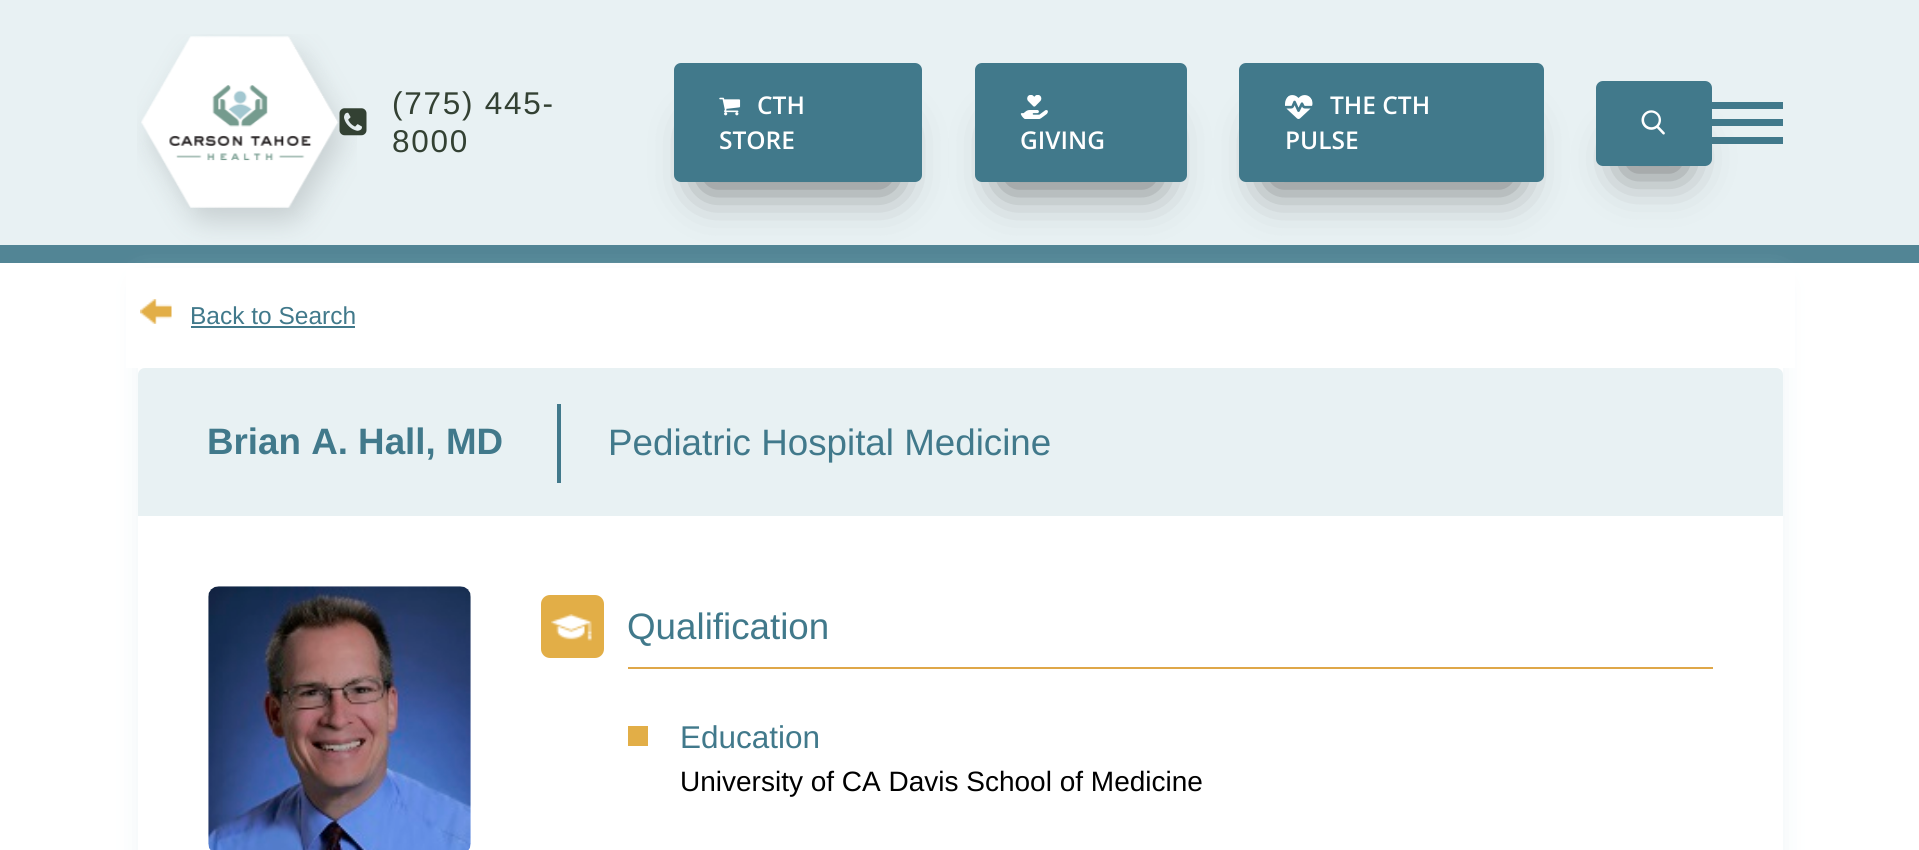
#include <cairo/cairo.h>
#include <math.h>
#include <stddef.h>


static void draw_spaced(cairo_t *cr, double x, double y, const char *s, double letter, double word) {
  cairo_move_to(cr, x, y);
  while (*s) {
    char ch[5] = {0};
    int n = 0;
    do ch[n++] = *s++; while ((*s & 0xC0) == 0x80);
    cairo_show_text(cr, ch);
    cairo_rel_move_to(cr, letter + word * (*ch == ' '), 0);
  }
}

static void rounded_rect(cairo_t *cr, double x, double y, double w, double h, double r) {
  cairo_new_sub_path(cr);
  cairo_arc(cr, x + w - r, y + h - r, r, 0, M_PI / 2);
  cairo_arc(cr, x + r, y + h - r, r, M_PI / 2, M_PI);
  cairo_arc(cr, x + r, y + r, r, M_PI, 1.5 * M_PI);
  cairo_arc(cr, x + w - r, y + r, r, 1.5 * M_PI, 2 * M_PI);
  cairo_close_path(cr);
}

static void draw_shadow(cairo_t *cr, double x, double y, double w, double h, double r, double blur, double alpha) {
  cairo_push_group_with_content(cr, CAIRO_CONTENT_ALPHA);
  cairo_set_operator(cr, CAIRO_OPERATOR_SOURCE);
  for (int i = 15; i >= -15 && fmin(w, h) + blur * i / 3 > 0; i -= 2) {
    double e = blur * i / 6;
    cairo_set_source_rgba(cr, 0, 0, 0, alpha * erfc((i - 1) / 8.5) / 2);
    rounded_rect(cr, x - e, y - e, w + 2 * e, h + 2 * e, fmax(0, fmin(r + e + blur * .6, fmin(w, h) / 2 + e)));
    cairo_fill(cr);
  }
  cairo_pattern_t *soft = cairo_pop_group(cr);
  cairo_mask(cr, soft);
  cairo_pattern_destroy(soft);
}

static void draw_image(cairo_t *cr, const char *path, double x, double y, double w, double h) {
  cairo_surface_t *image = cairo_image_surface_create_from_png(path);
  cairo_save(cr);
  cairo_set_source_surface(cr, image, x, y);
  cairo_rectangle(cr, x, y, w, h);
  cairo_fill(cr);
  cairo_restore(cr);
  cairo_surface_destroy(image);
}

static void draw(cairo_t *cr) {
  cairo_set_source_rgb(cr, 1, 1, 1);
  cairo_paint(cr);
  cairo_set_source_rgb(cr, 82 / 255.0, 133 / 255.0, 149 / 255.0);
  cairo_rectangle(cr, 0, 245, 1919, 18);
  cairo_fill(cr);
  cairo_set_source_rgb(cr, 232 / 255.0, 241 / 255.0, 243 / 255.0);
  draw_shadow(cr, 138, 280, 1645, 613, 7, 12, 0.7);
  cairo_set_source_rgb(cr, 232 / 255.0, 241 / 255.0, 243 / 255.0);
  cairo_rectangle(cr, 0, 0, 1919, 245);
  cairo_fill(cr);
  draw_image(cr, "images/1.png", 137, 34, 220, 212);
  draw_image(cr, "images/2.png", 339, 108, 28, 28);
  cairo_set_source_rgb(cr, 102 / 255.0, 102 / 255.0, 102 / 255.0);
  draw_shadow(cr, 705, 130, 186, 56, 0, 23, 1);
  cairo_set_source_rgb(cr, 65 / 255.0, 121 / 255.0, 139 / 255.0);
  rounded_rect(cr, 674, 63, 248, 119, 7);
  cairo_fill(cr);
  draw_image(cr, "images/3.png", 719, 97, 22, 19);
  cairo_set_source_rgb(cr, 102 / 255.0, 102 / 255.0, 102 / 255.0);
  draw_shadow(cr, 1006, 130, 149, 56, 0, 23, 1);
  cairo_set_source_rgb(cr, 65 / 255.0, 121 / 255.0, 139 / 255.0);
  rounded_rect(cr, 975, 63, 212, 119, 7);
  cairo_fill(cr);
  draw_image(cr, "images/4.png", 1020, 95, 28, 24);
  cairo_set_source_rgb(cr, 102 / 255.0, 102 / 255.0, 102 / 255.0);
  draw_shadow(cr, 1271, 130, 241, 56, 0, 23, 1);
  cairo_set_source_rgb(cr, 65 / 255.0, 121 / 255.0, 139 / 255.0);
  rounded_rect(cr, 1239, 63, 305, 119, 7);
  cairo_fill(cr);
  draw_image(cr, "images/5.png", 1285, 95, 28, 24);
  cairo_rectangle(cr, 1712, 102, 71, 7);
  cairo_fill(cr);
  cairo_rectangle(cr, 1712, 119, 71, 7);
  cairo_fill(cr);
  cairo_rectangle(cr, 1712, 137, 71, 7);
  cairo_fill(cr);
  cairo_set_source_rgb(cr, 102 / 255.0, 102 / 255.0, 102 / 255.0);
  draw_shadow(cr, 1628, 147, 52, 23, 0, 23, 1);
  cairo_set_source_rgb(cr, 65 / 255.0, 121 / 255.0, 139 / 255.0);
  rounded_rect(cr, 1596, 81, 116, 85, 7);
  cairo_fill(cr);
  draw_image(cr, "images/6.png", 1641, 110, 24, 25);
  cairo_set_source_rgb(cr, 1, 1, 1);
  cairo_rectangle(cr, 138, 368, 1645, 482);
  cairo_fill(cr);
  cairo_rectangle(cr, 126, 268, 1669, 100);
  cairo_fill(cr);
  draw_image(cr, "images/7.png", 140, 299, 32, 25);
  cairo_set_source_rgb(cr, 65 / 255.0, 121 / 255.0, 139 / 255.0);
  cairo_rectangle(cr, 191, 326, 164, 2);
  cairo_fill(cr);
  cairo_set_source_rgb(cr, 232 / 255.0, 241 / 255.0, 243 / 255.0);
  cairo_new_path(cr);
  cairo_move_to(cr, 145, 368);
  cairo_line_to(cr, 1776, 368);
  cairo_curve_to(cr, 1780, 368, 1783, 371, 1783, 375);
  cairo_line_to(cr, 1783, 516);
  cairo_line_to(cr, 138, 516);
  cairo_line_to(cr, 138, 375);
  cairo_curve_to(cr, 138, 371, 141, 368, 145, 368);
  cairo_close_path(cr);
  cairo_fill(cr);
  cairo_set_source_rgb(cr, 65 / 255.0, 121 / 255.0, 139 / 255.0);
  cairo_rectangle(cr, 557, 404, 4, 79);
  cairo_fill(cr);
  draw_image(cr, "images/8.png", 208, 586, 263, 264);
  cairo_set_source_rgb(cr, 226 / 255.0, 174 / 255.0, 71 / 255.0);
  rounded_rect(cr, 541, 595, 63, 63, 9);
  cairo_fill(cr);
  draw_image(cr, "images/9.png", 551, 614, 41, 27);
  cairo_set_source_rgb(cr, 223 / 255.0, 167 / 255.0, 72 / 255.0);
  cairo_rectangle(cr, 628, 667, 1085, 2);
  cairo_fill(cr);
  cairo_set_source_rgb(cr, 226 / 255.0, 174 / 255.0, 71 / 255.0);
  cairo_rectangle(cr, 628, 726, 20, 20);
  cairo_fill(cr);
  cairo_select_font_face(cr, "Liberation Sans", CAIRO_FONT_SLANT_NORMAL, CAIRO_FONT_WEIGHT_NORMAL);
  cairo_set_font_size(cr, 31.5);
  cairo_set_source_rgb(cr, 51 / 255.0, 65 / 255.0, 51 / 255.0);
  draw_spaced(cr, 392, 114, "(775) 445-", 1.75, 0);
  draw_spaced(cr, 392, 152, "8000", 1.75, 0);
  cairo_select_font_face(cr, "Open Sans SemiBold", CAIRO_FONT_SLANT_NORMAL, CAIRO_FONT_WEIGHT_NORMAL);
  cairo_set_font_size(cr, 24.5);
  cairo_set_source_rgb(cr, 1, 1, 1);
  cairo_move_to(cr, 757, 114);
  cairo_show_text(cr, "CTH");
  cairo_move_to(cr, 719, 149);
  cairo_show_text(cr, "STORE");
  cairo_move_to(cr, 1020, 149);
  cairo_show_text(cr, "GIVING");
  cairo_move_to(cr, 1330, 114);
  cairo_show_text(cr, "THE CTH");
  cairo_move_to(cr, 1285, 149);
  cairo_show_text(cr, "PULSE");
  cairo_select_font_face(cr, "Liberation Sans", CAIRO_FONT_SLANT_NORMAL, CAIRO_FONT_WEIGHT_NORMAL);
  cairo_set_source_rgb(cr, 65 / 255.0, 121 / 255.0, 139 / 255.0);
  cairo_move_to(cr, 190, 324);
  cairo_show_text(cr, "Back to Search");
  cairo_select_font_face(cr, "Liberation Sans", CAIRO_FONT_SLANT_NORMAL, CAIRO_FONT_WEIGHT_BOLD);
  cairo_set_font_size(cr, 36.75);
  cairo_move_to(cr, 207, 454);
  cairo_show_text(cr, "Brian A. Hall, MD");
  cairo_select_font_face(cr, "Liberation Sans", CAIRO_FONT_SLANT_NORMAL, CAIRO_FONT_WEIGHT_NORMAL);
  cairo_move_to(cr, 608, 455);
  cairo_show_text(cr, "Pediatric Hospital Medicine");
  cairo_move_to(cr, 627, 639);
  cairo_show_text(cr, "Qualification");
  cairo_set_font_size(cr, 31.5);
  cairo_move_to(cr, 680, 748);
  cairo_show_text(cr, "Education");
  cairo_set_font_size(cr, 28);
  cairo_set_source_rgb(cr, 0, 0, 0);
  cairo_move_to(cr, 680, 791);
  cairo_show_text(cr, "University of CA Davis School of Medicine");
}

int main(void) {
  cairo_surface_t *surface = cairo_image_surface_create(CAIRO_FORMAT_RGB24, 1919, 850);
  cairo_t *cr = cairo_create(surface);
  cairo_font_options_t *options = cairo_font_options_create();
  cairo_font_options_set_hint_metrics(options, CAIRO_HINT_METRICS_OFF);
  cairo_font_options_set_hint_style(options, CAIRO_HINT_STYLE_NONE);
  cairo_set_font_options(cr, options);
  cairo_set_miter_limit(cr, 4);
  draw(cr);
  cairo_surface_write_to_png(surface, "out.png");
  cairo_font_options_destroy(options);
  cairo_destroy(cr);
  cairo_surface_destroy(surface);
  return 0;
}
